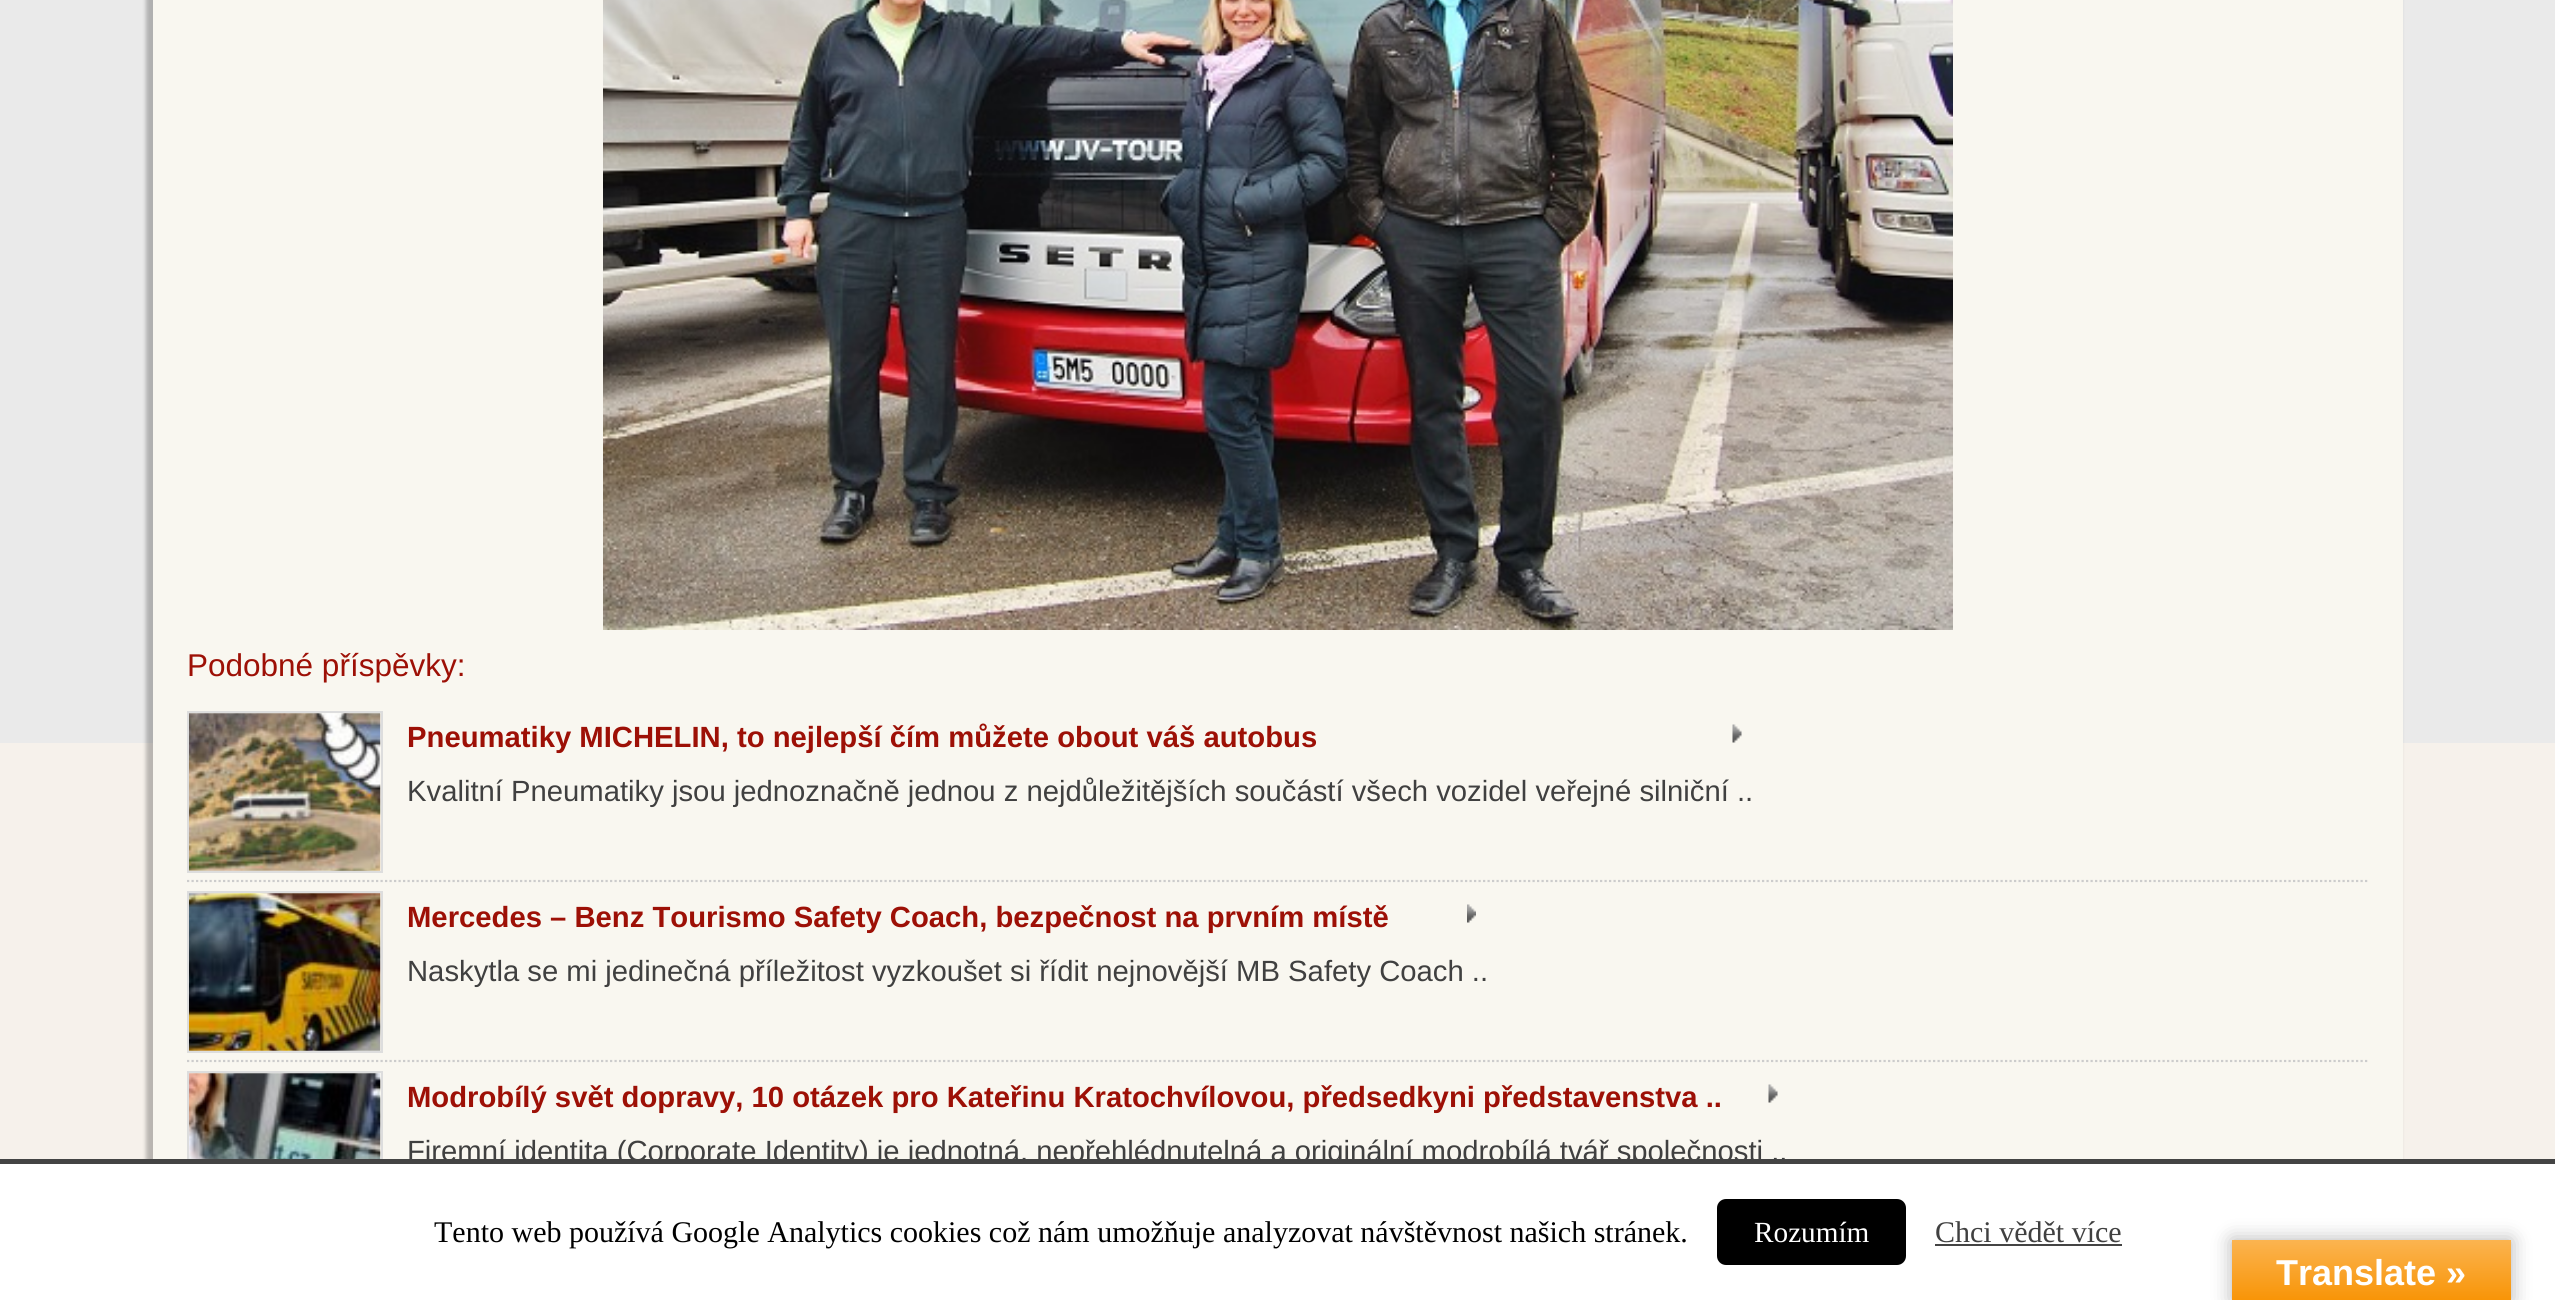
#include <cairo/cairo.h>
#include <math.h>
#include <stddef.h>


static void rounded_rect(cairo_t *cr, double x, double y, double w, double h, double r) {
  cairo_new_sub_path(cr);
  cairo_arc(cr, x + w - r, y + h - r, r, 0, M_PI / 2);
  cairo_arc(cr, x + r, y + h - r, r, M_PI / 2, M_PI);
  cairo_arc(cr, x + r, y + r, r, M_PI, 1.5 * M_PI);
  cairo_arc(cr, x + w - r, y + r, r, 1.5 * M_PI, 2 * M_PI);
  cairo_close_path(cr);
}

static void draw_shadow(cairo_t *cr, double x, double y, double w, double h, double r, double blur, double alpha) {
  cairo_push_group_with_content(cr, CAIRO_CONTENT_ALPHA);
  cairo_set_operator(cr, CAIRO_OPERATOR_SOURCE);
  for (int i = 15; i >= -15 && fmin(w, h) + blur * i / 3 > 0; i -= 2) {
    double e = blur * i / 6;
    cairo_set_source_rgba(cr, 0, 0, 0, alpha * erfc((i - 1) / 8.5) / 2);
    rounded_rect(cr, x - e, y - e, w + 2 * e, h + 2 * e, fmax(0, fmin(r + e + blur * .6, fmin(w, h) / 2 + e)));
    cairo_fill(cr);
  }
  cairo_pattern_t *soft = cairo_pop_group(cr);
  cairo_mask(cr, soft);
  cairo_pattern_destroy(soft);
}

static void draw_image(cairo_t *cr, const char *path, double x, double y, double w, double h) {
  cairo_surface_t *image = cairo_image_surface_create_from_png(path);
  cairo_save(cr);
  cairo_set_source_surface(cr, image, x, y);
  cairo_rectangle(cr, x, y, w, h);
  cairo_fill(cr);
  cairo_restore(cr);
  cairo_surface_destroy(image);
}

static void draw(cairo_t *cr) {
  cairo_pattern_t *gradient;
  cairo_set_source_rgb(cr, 246 / 255.0, 241 / 255.0, 235 / 255.0);
  cairo_paint(cr);
  cairo_set_source_rgb(cr, 234 / 255.0, 234 / 255.0, 234 / 255.0);
  cairo_rectangle(cr, 0, 0, 2555, 743);
  cairo_fill(cr);
  cairo_set_source_rgb(cr, 0, 0, 0);
  draw_shadow(cr, 146, -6, 2255, 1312, 0, 2, 0.25);
  cairo_set_source_rgb(cr, 249 / 255.0, 247 / 255.0, 240 / 255.0);
  cairo_rectangle(cr, 153, 0, 2250, 1159);
  cairo_fill(cr);
  draw_image(cr, "images/1.png", 603, 0, 1350, 630);
  cairo_new_path(cr);
  cairo_move_to(cr, 187, 881);
  cairo_line_to(cr, 2369, 881);
  cairo_set_source_rgb(cr, 204 / 255.0, 204 / 255.0, 204 / 255.0);
  cairo_set_line_width(cr, 2.2);
  cairo_set_dash(cr, (double[]){2.25, 2.25}, 2, 0);
  cairo_stroke(cr);
  cairo_rectangle(cr, 188, 712, 194, 160);
  cairo_set_source_rgb(cr, 221 / 255.0, 221 / 255.0, 221 / 255.0);
  cairo_set_line_width(cr, 2);
  cairo_set_dash(cr, NULL, 0, 0);
  cairo_stroke(cr);
  draw_image(cr, "images/2.png", 189, 713, 192, 158);
  draw_image(cr, "images/3.png", 1732, 724, 10, 19);
  cairo_new_path(cr);
  cairo_move_to(cr, 187, 1061);
  cairo_line_to(cr, 2369, 1061);
  cairo_set_source_rgb(cr, 204 / 255.0, 204 / 255.0, 204 / 255.0);
  cairo_set_line_width(cr, 2.2);
  cairo_set_dash(cr, (double[]){2.25, 2.25}, 2, 0);
  cairo_stroke(cr);
  cairo_rectangle(cr, 188, 892, 194, 160);
  cairo_set_source_rgb(cr, 221 / 255.0, 221 / 255.0, 221 / 255.0);
  cairo_set_line_width(cr, 2);
  cairo_set_dash(cr, NULL, 0, 0);
  cairo_stroke(cr);
  draw_image(cr, "images/4.png", 189, 893, 192, 158);
  draw_image(cr, "images/5.png", 1467, 904, 9, 19);
  cairo_rectangle(cr, 188, 1072, 194, 160);
  cairo_stroke(cr);
  draw_image(cr, "images/6.png", 189, 1073, 192, 86);
  draw_image(cr, "images/3.png", 1768, 1084, 10, 19);
  cairo_select_font_face(cr, "Liberation Sans", CAIRO_FONT_SLANT_NORMAL, CAIRO_FONT_WEIGHT_NORMAL);
  cairo_set_font_size(cr, 31.5);
  cairo_set_source_rgb(cr, 157 / 255.0, 16 / 255.0, 6 / 255.0);
  cairo_move_to(cr, 187, 676);
  cairo_show_text(cr, "Podobné příspěvky:");
  cairo_select_font_face(cr, "Liberation Sans", CAIRO_FONT_SLANT_NORMAL, CAIRO_FONT_WEIGHT_BOLD);
  cairo_set_font_size(cr, 29.25);
  cairo_move_to(cr, 407, 747);
  cairo_show_text(cr, "Pneumatiky MICHELIN, to nejlepší čím můžete obout váš autobus");
  cairo_select_font_face(cr, "Liberation Sans", CAIRO_FONT_SLANT_NORMAL, CAIRO_FONT_WEIGHT_NORMAL);
  cairo_set_source_rgb(cr, 64 / 255.0, 64 / 255.0, 64 / 255.0);
  cairo_move_to(cr, 407, 801);
  cairo_show_text(cr, "Kvalitní Pneumatiky jsou jednoznačně jednou z nejdůležitějších součástí všech vozidel veřejné silniční ..");
  cairo_select_font_face(cr, "Liberation Sans", CAIRO_FONT_SLANT_NORMAL, CAIRO_FONT_WEIGHT_BOLD);
  cairo_set_source_rgb(cr, 157 / 255.0, 16 / 255.0, 6 / 255.0);
  cairo_move_to(cr, 407, 927);
  cairo_show_text(cr, "Mercedes – Benz Tourismo Safety Coach, bezpečnost na prvním místě");
  cairo_select_font_face(cr, "Liberation Sans", CAIRO_FONT_SLANT_NORMAL, CAIRO_FONT_WEIGHT_NORMAL);
  cairo_set_source_rgb(cr, 64 / 255.0, 64 / 255.0, 64 / 255.0);
  cairo_move_to(cr, 407, 981);
  cairo_show_text(cr, "Naskytla se mi jedinečná příležitost vyzkoušet si řídit nejnovější MB Safety Coach ..");
  cairo_select_font_face(cr, "Liberation Sans", CAIRO_FONT_SLANT_NORMAL, CAIRO_FONT_WEIGHT_BOLD);
  cairo_set_source_rgb(cr, 157 / 255.0, 16 / 255.0, 6 / 255.0);
  cairo_move_to(cr, 407, 1107);
  cairo_show_text(cr, "Modrobílý svět dopravy, 10 otázek pro Kateřinu Kratochvílovou, předsedkyni představenstva ..");
  cairo_select_font_face(cr, "Liberation Sans", CAIRO_FONT_SLANT_NORMAL, CAIRO_FONT_WEIGHT_NORMAL);
  cairo_set_source_rgb(cr, 64 / 255.0, 64 / 255.0, 64 / 255.0);
  cairo_move_to(cr, 407, 1161);
  cairo_show_text(cr, "Firemní identita (Corporate Identity) je jednotná, nepřehlédnutelná a originální modrobílá tvář společnosti ..");
  cairo_set_source_rgb(cr, 1, 1, 1);
  cairo_rectangle(cr, 0, 1164, 2555, 136);
  cairo_fill(cr);
  cairo_set_source_rgb(cr, 68 / 255.0, 68 / 255.0, 68 / 255.0);
  cairo_rectangle(cr, 0, 1159, 2555, 5);
  cairo_fill(cr);
  cairo_select_font_face(cr, "Liberation Serif", CAIRO_FONT_SLANT_NORMAL, CAIRO_FONT_WEIGHT_NORMAL);
  cairo_set_font_size(cr, 30);
  cairo_set_source_rgb(cr, 0, 0, 0);
  cairo_move_to(cr, 434, 1242);
  cairo_show_text(cr, "Tento web používá Google Analytics cookies což nám umožňuje analyzovat návštěvnost našich stránek.");
  rounded_rect(cr, 1717, 1199, 189, 66, 9);
  cairo_fill(cr);
  cairo_set_font_size(cr, 29.25);
  cairo_set_source_rgb(cr, 1, 1, 1);
  cairo_move_to(cr, 1754, 1242);
  cairo_show_text(cr, "Rozumím");
  cairo_set_font_size(cr, 30);
  cairo_set_source_rgb(cr, 64 / 255.0, 64 / 255.0, 64 / 255.0);
  cairo_move_to(cr, 1935, 1242);
  cairo_show_text(cr, "Chci vědět více");
  cairo_set_source_rgb(cr, 68 / 255.0, 68 / 255.0, 68 / 255.0);
  cairo_rectangle(cr, 1935, 1244, 187, 2);
  cairo_fill(cr);
  cairo_set_source_rgb(cr, 0, 0, 0);
  draw_shadow(cr, 2232, 1240, 279, 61, 0, 10, 0.3);
  gradient = cairo_pattern_create_linear(2372, 1240, 2372, 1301);
  cairo_pattern_add_color_stop_rgba(gradient, 0, 251 / 255.0, 180 / 255.0, 80 / 255.0, 1);
  cairo_pattern_add_color_stop_rgba(gradient, 1, 248 / 255.0, 148 / 255.0, 6 / 255.0, 1);
  cairo_set_source(cr, gradient);
  cairo_pattern_destroy(gradient);
  cairo_rectangle(cr, 2232, 1240, 279, 60);
  cairo_fill(cr);
  cairo_select_font_face(cr, "Liberation Sans", CAIRO_FONT_SLANT_NORMAL, CAIRO_FONT_WEIGHT_BOLD);
  cairo_set_font_size(cr, 36);
  cairo_set_source_rgb(cr, 1, 1, 1);
  cairo_move_to(cr, 2276, 1285);
  cairo_show_text(cr, "Translate »");
}

int main(void) {
  cairo_surface_t *surface = cairo_image_surface_create(CAIRO_FORMAT_RGB24, 2555, 1300);
  cairo_t *cr = cairo_create(surface);
  cairo_font_options_t *options = cairo_font_options_create();
  cairo_font_options_set_hint_metrics(options, CAIRO_HINT_METRICS_OFF);
  cairo_font_options_set_hint_style(options, CAIRO_HINT_STYLE_NONE);
  cairo_set_font_options(cr, options);
  cairo_set_miter_limit(cr, 4);
  draw(cr);
  cairo_surface_write_to_png(surface, "out.png");
  cairo_font_options_destroy(options);
  cairo_destroy(cr);
  cairo_surface_destroy(surface);
  return 0;
}
